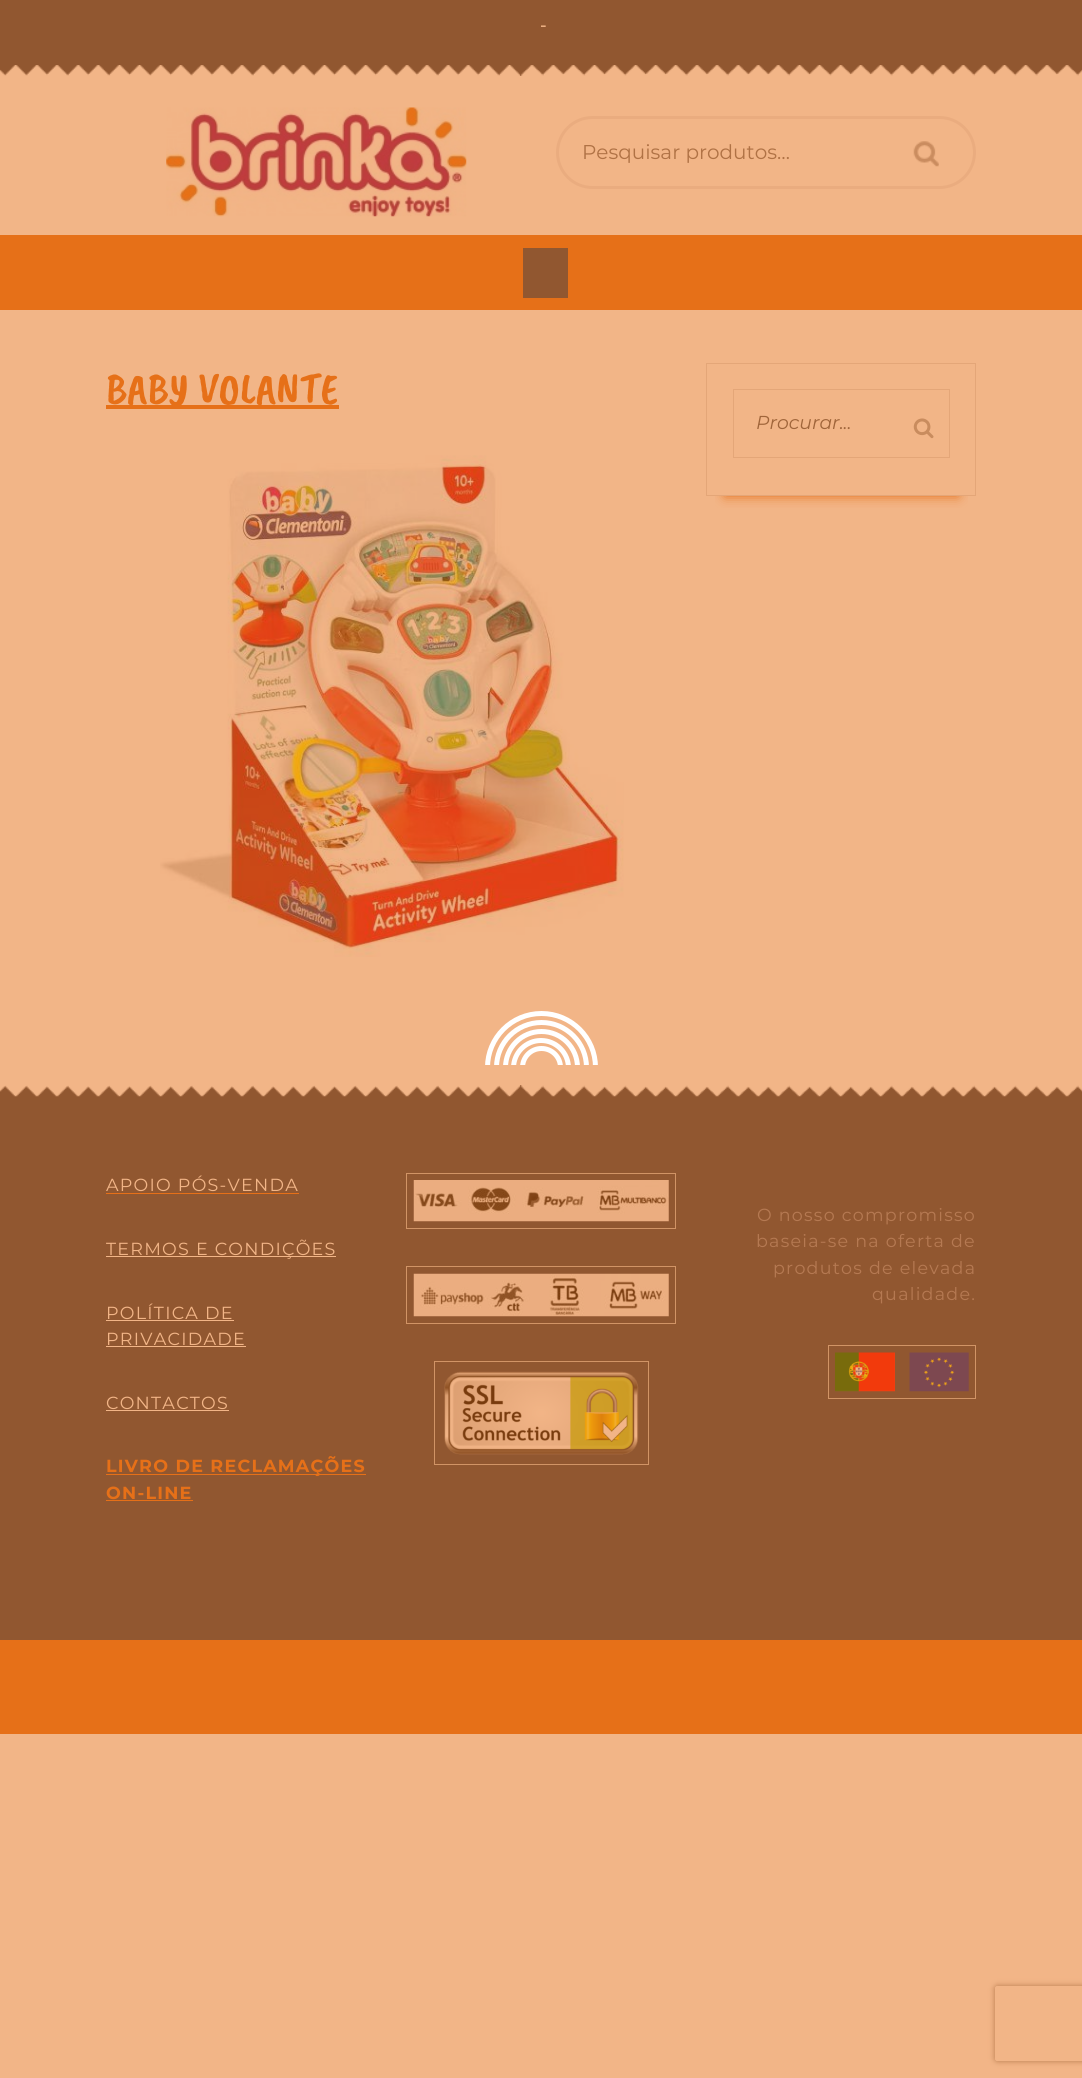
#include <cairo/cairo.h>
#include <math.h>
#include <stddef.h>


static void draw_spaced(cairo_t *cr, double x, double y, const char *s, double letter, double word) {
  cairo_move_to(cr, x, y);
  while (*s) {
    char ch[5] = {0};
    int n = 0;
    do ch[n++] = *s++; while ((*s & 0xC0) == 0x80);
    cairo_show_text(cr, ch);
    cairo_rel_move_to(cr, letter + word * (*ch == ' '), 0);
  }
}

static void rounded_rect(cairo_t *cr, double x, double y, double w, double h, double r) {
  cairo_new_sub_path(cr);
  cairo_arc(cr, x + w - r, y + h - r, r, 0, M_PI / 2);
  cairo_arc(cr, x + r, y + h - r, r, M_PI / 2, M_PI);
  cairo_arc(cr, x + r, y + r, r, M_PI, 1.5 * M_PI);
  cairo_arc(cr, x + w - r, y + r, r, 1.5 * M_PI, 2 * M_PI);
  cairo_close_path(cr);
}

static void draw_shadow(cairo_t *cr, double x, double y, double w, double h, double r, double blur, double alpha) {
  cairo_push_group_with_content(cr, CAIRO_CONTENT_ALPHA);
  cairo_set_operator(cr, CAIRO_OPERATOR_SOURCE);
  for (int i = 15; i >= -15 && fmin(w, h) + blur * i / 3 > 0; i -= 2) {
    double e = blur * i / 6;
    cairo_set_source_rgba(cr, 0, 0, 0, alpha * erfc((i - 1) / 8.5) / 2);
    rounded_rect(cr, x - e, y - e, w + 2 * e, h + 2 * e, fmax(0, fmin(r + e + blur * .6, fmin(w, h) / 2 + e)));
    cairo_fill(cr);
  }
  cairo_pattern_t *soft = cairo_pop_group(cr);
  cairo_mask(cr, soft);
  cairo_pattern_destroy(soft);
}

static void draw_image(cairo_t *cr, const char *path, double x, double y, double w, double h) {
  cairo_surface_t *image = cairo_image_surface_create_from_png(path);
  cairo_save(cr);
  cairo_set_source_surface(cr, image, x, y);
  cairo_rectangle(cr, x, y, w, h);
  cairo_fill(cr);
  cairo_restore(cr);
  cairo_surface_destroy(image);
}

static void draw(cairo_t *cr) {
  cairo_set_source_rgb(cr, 242 / 255.0, 181 / 255.0, 135 / 255.0);
  cairo_paint(cr);
  cairo_set_source_rgb(cr, 145 / 255.0, 87 / 255.0, 48 / 255.0);
  cairo_rectangle(cr, 0, 0, 1082, 76);
  cairo_fill(cr);
  draw_image(cr, "images/1.png", 0, 65, 1082, 11);
  draw_image(cr, "images/2.png", 166, 107, 301, 110);
  rounded_rect(cr, 557.5, 117.5, 417, 70, 35);
  cairo_set_source_rgb(cr, 234 / 255.0, 172 / 255.0, 127 / 255.0);
  cairo_set_line_width(cr, 3);
  cairo_stroke(cr);
  draw_image(cr, "images/3.png", 913, 141, 26, 26);
  cairo_set_source_rgb(cr, 230 / 255.0, 112 / 255.0, 24 / 255.0);
  cairo_rectangle(cr, 0, 235, 1082, 75);
  cairo_fill(cr);
  cairo_set_source_rgb(cr, 145 / 255.0, 87 / 255.0, 48 / 255.0);
  cairo_rectangle(cr, 523, 248, 45, 50);
  cairo_fill(cr);
  cairo_set_source_rgb(cr, 230 / 255.0, 112 / 255.0, 24 / 255.0);
  cairo_rectangle(cr, 106, 405, 233, 4);
  cairo_fill(cr);
  draw_image(cr, "images/4.png", 160, 455, 464, 502);
  cairo_save(cr);
  cairo_rectangle(cr, 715, 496, 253, 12);
  cairo_clip(cr);
  cairo_set_source_rgb(cr, 230 / 255.0, 112 / 255.0, 24 / 255.0);
  draw_shadow(cr, 725, 400, 233, 96, 0, 6, 1);
  cairo_restore(cr);
  cairo_rectangle(cr, 706.5, 363.5, 269, 132);
  cairo_set_source_rgb(cr, 228 / 255.0, 166 / 255.0, 120 / 255.0);
  cairo_set_line_width(cr, 1);
  cairo_stroke(cr);
  cairo_rectangle(cr, 733.5, 389.5, 216, 68);
  cairo_stroke(cr);
  draw_image(cr, "images/5.png", 913, 418, 21, 21);
  cairo_set_source_rgb(cr, 145 / 255.0, 87 / 255.0, 48 / 255.0);
  cairo_rectangle(cr, 0, 1085, 1082, 555);
  cairo_fill(cr);
  draw_image(cr, "images/6.png", 0, 1085, 1082, 12);
  cairo_save(cr);
  cairo_rectangle(cr, 479, 1003, 125, 62);
  cairo_clip(cr);
  cairo_arc(cr, 541.5, 1067.5, 54, 0, 2 * M_PI);
  cairo_set_source_rgb(cr, 1, 1, 1);
  cairo_set_line_width(cr, 5);
  cairo_stroke(cr);
  cairo_arc(cr, 541.5, 1067.5, 45, 0, 2 * M_PI);
  cairo_stroke(cr);
  cairo_arc(cr, 541.5, 1067.5, 36, 0, 2 * M_PI);
  cairo_stroke(cr);
  cairo_arc(cr, 541, 1068, 27.5, 0, 2 * M_PI);
  cairo_stroke(cr);
  cairo_arc(cr, 541.5, 1067.5, 19, 0, 2 * M_PI);
  cairo_stroke(cr);
  cairo_restore(cr);
  cairo_set_source_rgb(cr, 230 / 255.0, 112 / 255.0, 24 / 255.0);
  cairo_rectangle(cr, 106, 1193, 193, 1);
  cairo_fill(cr);
  cairo_set_source_rgb(cr, 242 / 255.0, 181 / 255.0, 135 / 255.0);
  cairo_rectangle(cr, 106, 1256, 230, 1);
  cairo_fill(cr);
  cairo_rectangle(cr, 106, 1320, 128, 1);
  cairo_fill(cr);
  cairo_rectangle(cr, 106, 1346, 140, 1);
  cairo_fill(cr);
  cairo_rectangle(cr, 106, 1410, 123, 1);
  cairo_fill(cr);
  cairo_set_source_rgb(cr, 230 / 255.0, 112 / 255.0, 24 / 255.0);
  cairo_rectangle(cr, 106, 1474, 260, 1);
  cairo_fill(cr);
  cairo_rectangle(cr, 106, 1500, 87, 1);
  cairo_fill(cr);
  cairo_rectangle(cr, 406.5, 1173.5, 269, 55);
  cairo_set_source_rgb(cr, 209 / 255.0, 148 / 255.0, 102 / 255.0);
  cairo_stroke(cr);
  draw_image(cr, "images/7.png", 413, 1180, 256, 42);
  cairo_rectangle(cr, 406.5, 1266.5, 269, 57);
  cairo_stroke(cr);
  draw_image(cr, "images/8.png", 413, 1273, 256, 44);
  cairo_rectangle(cr, 434.5, 1361.5, 214, 103);
  cairo_stroke(cr);
  draw_image(cr, "images/9.png", 444, 1371, 195, 84);
  cairo_rectangle(cr, 828.5, 1345.5, 147, 53);
  cairo_stroke(cr);
  draw_image(cr, "images/10.png", 835, 1352, 134, 40);
  cairo_set_source_rgb(cr, 230 / 255.0, 112 / 255.0, 24 / 255.0);
  cairo_rectangle(cr, 0, 1640, 1082, 94);
  cairo_fill(cr);
  cairo_save(cr);
  cairo_set_fill_rule(cr, CAIRO_FILL_RULE_EVEN_ODD);
  cairo_new_path(cr);
  cairo_move_to(cr, 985, 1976);
  cairo_line_to(cr, 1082, 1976);
  cairo_line_to(cr, 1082, 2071);
  cairo_line_to(cr, 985, 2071);
  cairo_close_path(cr);
  cairo_move_to(cr, 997.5, 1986);
  cairo_line_to(cr, 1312.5, 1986);
  cairo_curve_to(cr, 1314, 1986, 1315, 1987, 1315, 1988.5);
  cairo_line_to(cr, 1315, 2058.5);
  cairo_curve_to(cr, 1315, 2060, 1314, 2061, 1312.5, 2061);
  cairo_line_to(cr, 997.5, 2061);
  cairo_curve_to(cr, 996, 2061, 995, 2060, 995, 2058.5);
  cairo_line_to(cr, 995, 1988.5);
  cairo_curve_to(cr, 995, 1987, 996, 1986, 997.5, 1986);
  cairo_close_path(cr);
  cairo_clip(cr);
  cairo_set_source_rgb(cr, 181 / 255.0, 120 / 255.0, 74 / 255.0);
  draw_shadow(cr, 995, 1986, 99, 75, 2.5, 3, 1);
  cairo_restore(cr);
  cairo_select_font_face(cr, "Montserrat Medium", CAIRO_FONT_SLANT_NORMAL, CAIRO_FONT_WEIGHT_NORMAL);
  cairo_set_font_size(cr, 17.5);
  cairo_set_source_rgb(cr, 242 / 255.0, 181 / 255.0, 135 / 255.0);
  draw_spaced(cr, 540, 31, "-", 1.25, 0);
  cairo_select_font_face(cr, "Montserrat", CAIRO_FONT_SLANT_NORMAL, CAIRO_FONT_WEIGHT_NORMAL);
  cairo_set_font_size(cr, 20);
  cairo_set_source_rgb(cr, 176 / 255.0, 114 / 255.0, 69 / 255.0);
  cairo_move_to(cr, 582, 159);
  cairo_show_text(cr, "Pesquisar produtos…");
  cairo_select_font_face(cr, "Caveat Brush", CAIRO_FONT_SLANT_NORMAL, CAIRO_FONT_WEIGHT_NORMAL);
  cairo_set_font_size(cr, 43.75);
  cairo_set_source_rgb(cr, 230 / 255.0, 112 / 255.0, 24 / 255.0);
  cairo_move_to(cr, 106, 403);
  cairo_show_text(cr, "BABY VOLANTE");
  cairo_select_font_face(cr, "Montserrat Thin", CAIRO_FONT_SLANT_ITALIC, CAIRO_FONT_WEIGHT_NORMAL);
  cairo_set_font_size(cr, 18.75);
  cairo_set_source_rgb(cr, 160 / 255.0, 101 / 255.0, 58 / 255.0);
  cairo_move_to(cr, 756, 429);
  cairo_show_text(cr, "Procurar...");
  cairo_select_font_face(cr, "Montserrat", CAIRO_FONT_SLANT_NORMAL, CAIRO_FONT_WEIGHT_NORMAL);
  cairo_set_font_size(cr, 17.5);
  cairo_set_source_rgb(cr, 242 / 255.0, 181 / 255.0, 135 / 255.0);
  draw_spaced(cr, 106, 1191, "APOIO PÓS-VENDA", 1.25, 0);
  draw_spaced(cr, 106, 1255, "TERMOS E CONDIÇÕES", 1.25, 0);
  draw_spaced(cr, 106, 1319, "POLÍTICA DE", 1.25, 0);
  draw_spaced(cr, 106, 1345, "PRIVACIDADE", 1.25, 0);
  draw_spaced(cr, 106, 1409, "CONTACTOS", 1.25, 0);
  cairo_select_font_face(cr, "Montserrat", CAIRO_FONT_SLANT_NORMAL, CAIRO_FONT_WEIGHT_BOLD);
  cairo_set_source_rgb(cr, 230 / 255.0, 112 / 255.0, 24 / 255.0);
  draw_spaced(cr, 106, 1472, "LIVRO DE RECLAMAÇÕES", 1.25, 0);
  draw_spaced(cr, 106, 1499, "ON-LINE", 1.25, 0);
  cairo_select_font_face(cr, "Montserrat", CAIRO_FONT_SLANT_NORMAL, CAIRO_FONT_WEIGHT_NORMAL);
  cairo_set_source_rgb(cr, 181 / 255.0, 121 / 255.0, 82 / 255.0);
  draw_spaced(cr, 757, 1221, "O nosso compromisso", 1.25, 0);
  draw_spaced(cr, 756, 1247, "baseia-se na oferta de", 1.25, 0);
  draw_spaced(cr, 773, 1274, "produtos de elevada", 1.25, 0);
  draw_spaced(cr, 872, 1300, "qualidade.", 1.25, 0);
}

int main(void) {
  cairo_surface_t *surface = cairo_image_surface_create(CAIRO_FORMAT_RGB24, 1082, 2078);
  cairo_t *cr = cairo_create(surface);
  cairo_font_options_t *options = cairo_font_options_create();
  cairo_font_options_set_hint_metrics(options, CAIRO_HINT_METRICS_OFF);
  cairo_font_options_set_hint_style(options, CAIRO_HINT_STYLE_NONE);
  cairo_set_font_options(cr, options);
  cairo_set_miter_limit(cr, 4);
  draw(cr);
  cairo_surface_write_to_png(surface, "out.png");
  cairo_font_options_destroy(options);
  cairo_destroy(cr);
  cairo_surface_destroy(surface);
  return 0;
}
